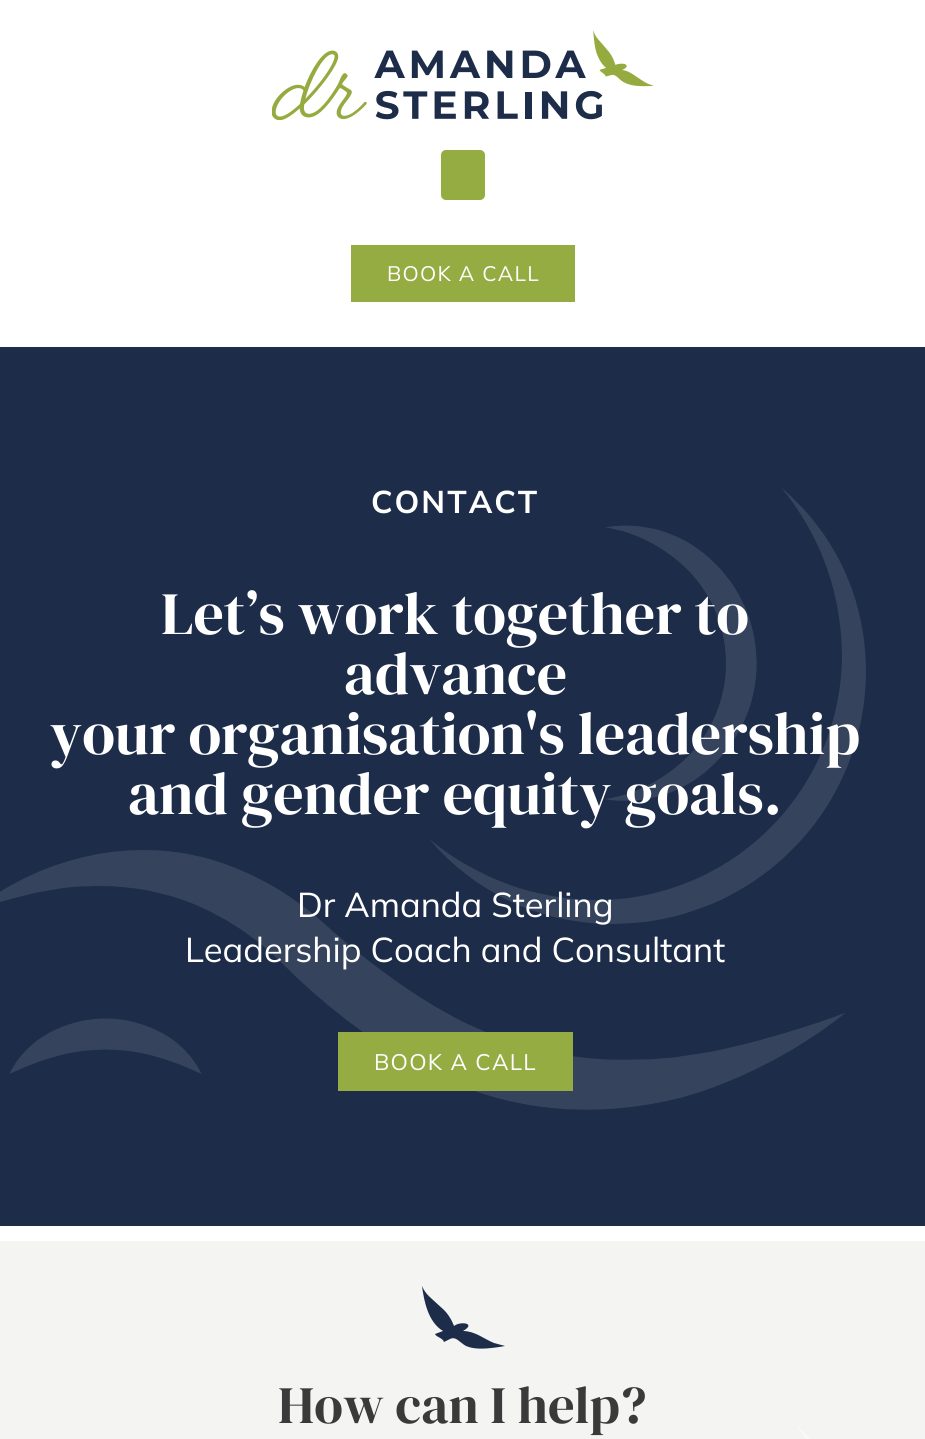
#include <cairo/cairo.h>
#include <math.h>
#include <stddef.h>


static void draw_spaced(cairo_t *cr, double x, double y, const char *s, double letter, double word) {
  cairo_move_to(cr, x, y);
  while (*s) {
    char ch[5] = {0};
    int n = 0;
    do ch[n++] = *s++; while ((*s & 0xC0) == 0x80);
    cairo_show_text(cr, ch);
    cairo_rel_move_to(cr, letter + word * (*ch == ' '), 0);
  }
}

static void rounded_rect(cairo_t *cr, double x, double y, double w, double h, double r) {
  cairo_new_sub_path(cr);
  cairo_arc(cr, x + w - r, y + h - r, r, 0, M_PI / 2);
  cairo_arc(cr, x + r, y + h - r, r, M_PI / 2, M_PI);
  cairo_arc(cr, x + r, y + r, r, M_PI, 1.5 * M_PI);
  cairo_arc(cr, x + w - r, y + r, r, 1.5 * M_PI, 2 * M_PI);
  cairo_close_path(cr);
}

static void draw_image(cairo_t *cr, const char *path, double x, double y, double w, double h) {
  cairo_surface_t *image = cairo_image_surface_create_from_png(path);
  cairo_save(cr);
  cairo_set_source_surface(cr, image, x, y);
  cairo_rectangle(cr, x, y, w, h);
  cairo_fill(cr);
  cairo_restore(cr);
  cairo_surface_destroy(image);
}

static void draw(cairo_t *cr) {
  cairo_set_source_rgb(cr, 1, 1, 1);
  cairo_paint(cr);
  draw_image(cr, "images/1.png", 272, 30, 382, 90);
  cairo_set_source_rgb(cr, 149 / 255.0, 172 / 255.0, 66 / 255.0);
  rounded_rect(cr, 441, 150, 44, 50, 5);
  cairo_fill(cr);
  cairo_rectangle(cr, 351, 245, 224, 57);
  cairo_fill(cr);
  cairo_set_source_rgb(cr, 29 / 255.0, 44 / 255.0, 73 / 255.0);
  cairo_rectangle(cr, 0, 347, 925, 879);
  cairo_fill(cr);
  draw_image(cr, "images/2.png", 0, 488, 866, 622);
  cairo_set_source_rgb(cr, 149 / 255.0, 172 / 255.0, 66 / 255.0);
  cairo_rectangle(cr, 338, 1032, 235, 59);
  cairo_fill(cr);
  cairo_set_source_rgb(cr, 244 / 255.0, 244 / 255.0, 242 / 255.0);
  cairo_rectangle(cr, 0, 1241, 925, 198);
  cairo_fill(cr);
  cairo_set_source_rgb(cr, 28 / 255.0, 44 / 255.0, 73 / 255.0);
  cairo_new_path(cr);
  cairo_move_to(cr, 494, 1343);
  cairo_curve_to(cr, 484, 1339, 475, 1331, 463, 1331);
  cairo_curve_to(cr, 477, 1323, 460, 1321, 454, 1326);
  cairo_curve_to(cr, 454, 1326, 451, 1317, 444, 1310);
  cairo_curve_to(cr, 429, 1296, 426, 1295, 422, 1286);
  cairo_curve_to(cr, 424, 1301, 428, 1322, 443, 1331);
  cairo_line_to(cr, 435, 1334);
  cairo_curve_to(cr, 436, 1337, 443, 1338, 444, 1342);
  cairo_line_to(cr, 450, 1339);
  cairo_curve_to(cr, 456, 1336, 459, 1342, 466, 1346);
  cairo_curve_to(cr, 475, 1350, 488, 1349, 505, 1346);
  cairo_close_path(cr);
  cairo_fill(cr);
  draw_image(cr, "images/3.png", 798, 1427, 12, 12);
  cairo_select_font_face(cr, "Mulish", CAIRO_FONT_SLANT_NORMAL, CAIRO_FONT_WEIGHT_NORMAL);
  cairo_set_font_size(cr, 21);
  cairo_set_source_rgb(cr, 1, 1, 1);
  draw_spaced(cr, 387, 281, "BOOK A CALL", 1.25, 0);
  cairo_select_font_face(cr, "Mulish", CAIRO_FONT_SLANT_NORMAL, CAIRO_FONT_WEIGHT_BOLD);
  cairo_set_font_size(cr, 31.5);
  draw_spaced(cr, 371, 513, "CONTACT", 2, 0);
  cairo_select_font_face(cr, "DM Serif Display", CAIRO_FONT_SLANT_NORMAL, CAIRO_FONT_WEIGHT_NORMAL);
  cairo_set_font_size(cr, 60);
  cairo_move_to(cr, 161, 634);
  cairo_show_text(cr, "Let’s work together to");
  cairo_move_to(cr, 344, 694);
  cairo_show_text(cr, "advance");
  cairo_move_to(cr, 50, 754);
  cairo_show_text(cr, "your organisation's leadership");
  cairo_move_to(cr, 128, 814);
  cairo_show_text(cr, "and gender equity goals.");
  cairo_select_font_face(cr, "Mulish", CAIRO_FONT_SLANT_NORMAL, CAIRO_FONT_WEIGHT_NORMAL);
  cairo_set_font_size(cr, 34.5);
  cairo_move_to(cr, 297, 917);
  cairo_show_text(cr, "Dr Amanda Sterling");
  cairo_move_to(cr, 185, 962);
  cairo_show_text(cr, "Leadership Coach and Consultant");
  cairo_set_font_size(cr, 22.5);
  draw_spaced(cr, 374, 1070, "BOOK A CALL", 1.25, 0);
  cairo_select_font_face(cr, "DM Serif Display", CAIRO_FONT_SLANT_NORMAL, CAIRO_FONT_WEIGHT_NORMAL);
  cairo_set_font_size(cr, 52.5);
  cairo_set_source_rgb(cr, 58 / 255.0, 58 / 255.0, 58 / 255.0);
  cairo_move_to(cr, 278, 1423);
  cairo_show_text(cr, "How can I help?");
}

int main(void) {
  cairo_surface_t *surface = cairo_image_surface_create(CAIRO_FORMAT_RGB24, 925, 1439);
  cairo_t *cr = cairo_create(surface);
  cairo_font_options_t *options = cairo_font_options_create();
  cairo_font_options_set_hint_metrics(options, CAIRO_HINT_METRICS_OFF);
  cairo_font_options_set_hint_style(options, CAIRO_HINT_STYLE_NONE);
  cairo_set_font_options(cr, options);
  cairo_set_miter_limit(cr, 4);
  draw(cr);
  cairo_surface_write_to_png(surface, "out.png");
  cairo_font_options_destroy(options);
  cairo_destroy(cr);
  cairo_surface_destroy(surface);
  return 0;
}
